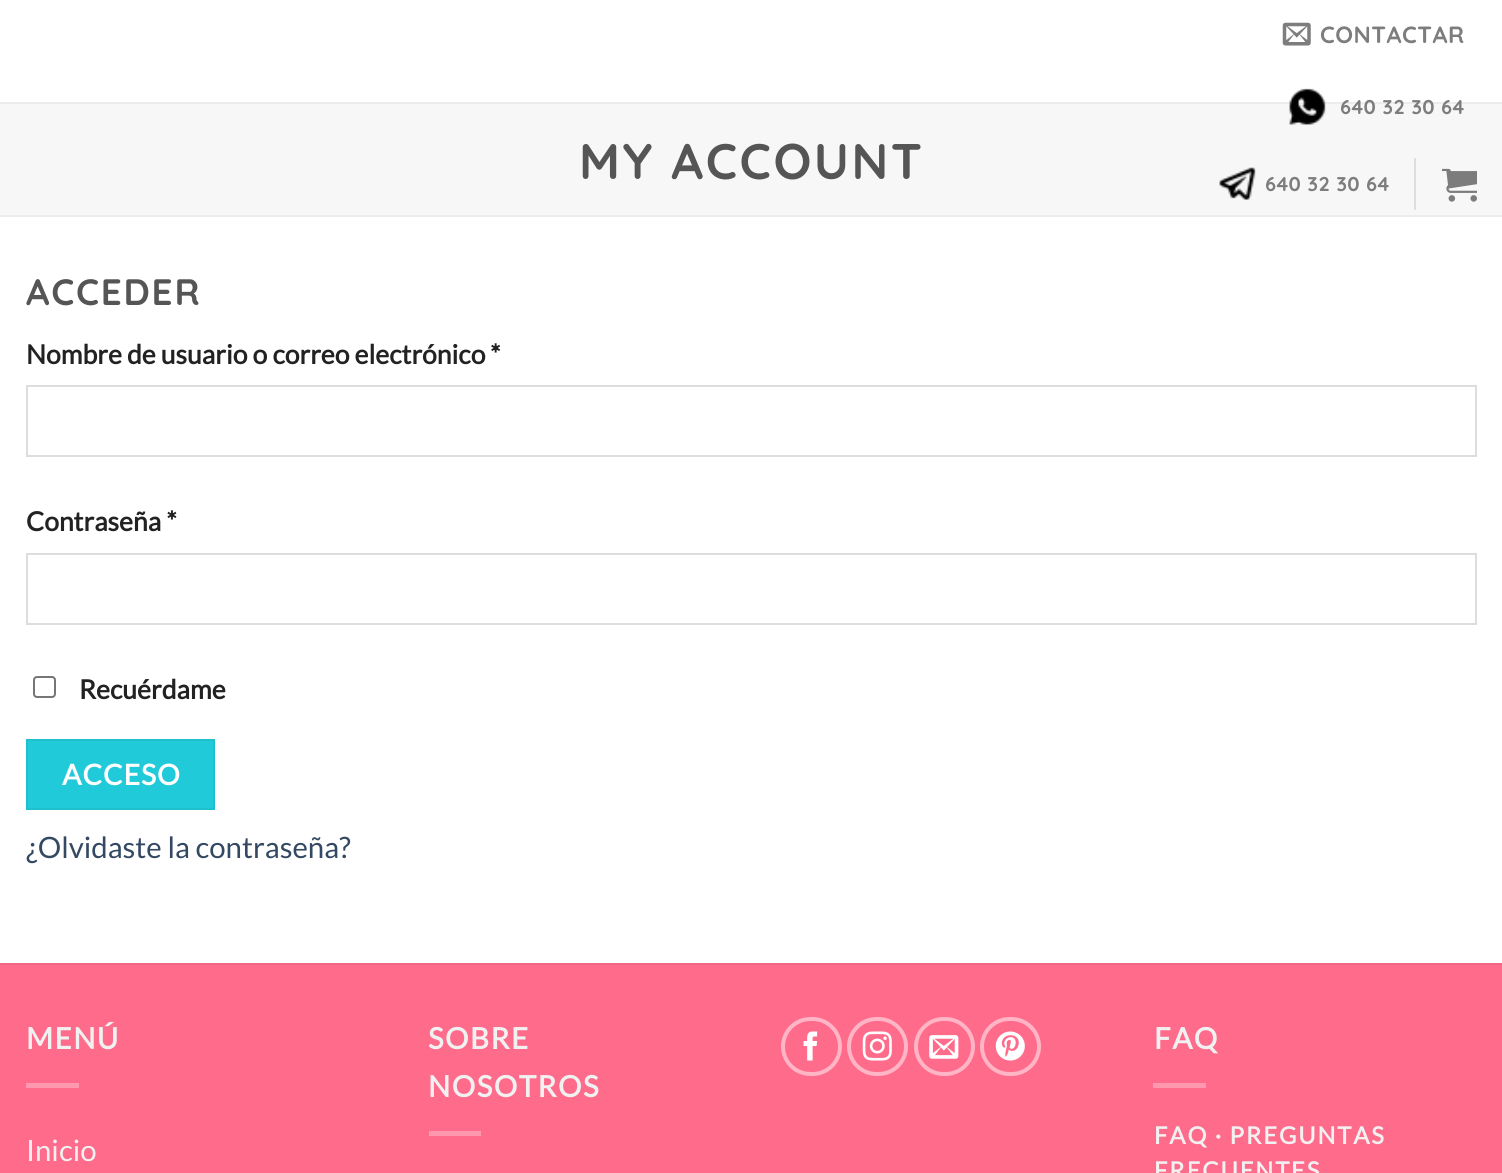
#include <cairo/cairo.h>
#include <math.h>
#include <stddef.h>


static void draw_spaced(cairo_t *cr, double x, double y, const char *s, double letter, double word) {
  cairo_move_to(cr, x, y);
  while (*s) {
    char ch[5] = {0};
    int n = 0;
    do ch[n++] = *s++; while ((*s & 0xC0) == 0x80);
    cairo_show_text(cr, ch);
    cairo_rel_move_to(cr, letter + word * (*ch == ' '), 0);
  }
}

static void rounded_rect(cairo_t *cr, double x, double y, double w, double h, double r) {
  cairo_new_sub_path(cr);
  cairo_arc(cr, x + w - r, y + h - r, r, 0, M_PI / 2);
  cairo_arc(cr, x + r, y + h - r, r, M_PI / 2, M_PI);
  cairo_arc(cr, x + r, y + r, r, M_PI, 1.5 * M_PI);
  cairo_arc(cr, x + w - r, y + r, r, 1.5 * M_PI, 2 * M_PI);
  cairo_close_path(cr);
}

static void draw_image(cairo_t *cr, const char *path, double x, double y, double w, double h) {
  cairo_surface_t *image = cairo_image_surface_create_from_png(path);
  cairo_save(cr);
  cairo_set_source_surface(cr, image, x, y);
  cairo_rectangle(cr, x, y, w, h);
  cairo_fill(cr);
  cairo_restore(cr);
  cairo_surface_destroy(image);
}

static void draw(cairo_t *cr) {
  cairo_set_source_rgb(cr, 1, 1, 1);
  cairo_paint(cr);
  draw_image(cr, "images/1.png", 1282, 22, 29, 24);
  cairo_set_source_rgb(cr, 247 / 255.0, 247 / 255.0, 247 / 255.0);
  cairo_rectangle(cr, 0, 104, 1502, 111);
  cairo_fill(cr);
  cairo_set_source_rgb(cr, 236 / 255.0, 236 / 255.0, 236 / 255.0);
  cairo_rectangle(cr, 0, 102, 1502, 2);
  cairo_fill(cr);
  draw_image(cr, "images/2.png", 1289, 88, 37, 37);
  draw_image(cr, "images/3.png", 1219, 167, 37, 33);
  cairo_set_source_rgb(cr, 222 / 255.0, 222 / 255.0, 222 / 255.0);
  cairo_rectangle(cr, 1414, 158, 2, 52);
  cairo_fill(cr);
  draw_image(cr, "images/4.png", 1442, 168, 35, 34);
  cairo_set_source_rgb(cr, 236 / 255.0, 236 / 255.0, 236 / 255.0);
  cairo_rectangle(cr, 0, 215, 1502, 2);
  cairo_fill(cr);
  cairo_rectangle(cr, 27, 386, 1449, 70);
  cairo_set_source_rgb(cr, 221 / 255.0, 221 / 255.0, 221 / 255.0);
  cairo_stroke(cr);
  cairo_rectangle(cr, 27, 554, 1449, 70);
  cairo_stroke(cr);
  rounded_rect(cr, 34, 677, 21, 20, 3);
  cairo_set_source_rgb(cr, 118 / 255.0, 118 / 255.0, 118 / 255.0);
  cairo_stroke(cr);
  cairo_set_source_rgb(cr, 32 / 255.0, 202 / 255.0, 217 / 255.0);
  cairo_rectangle(cr, 27, 740, 187, 69);
  cairo_fill_preserve(cr);
  cairo_set_source_rgb(cr, 30 / 255.0, 192 / 255.0, 206 / 255.0);
  cairo_stroke(cr);
  cairo_set_source_rgb(cr, 1, 107 / 255.0, 139 / 255.0);
  cairo_rectangle(cr, 0, 965, 1502, 208);
  cairo_fill(cr);
  cairo_set_source_rgb(cr, 242 / 255.0, 102 / 255.0, 132 / 255.0);
  cairo_rectangle(cr, 0, 963, 1502, 2);
  cairo_fill(cr);
  cairo_set_source_rgb(cr, 1, 151 / 255.0, 174 / 255.0);
  cairo_rectangle(cr, 26, 1083, 53, 5);
  cairo_fill(cr);
  cairo_rectangle(cr, 429, 1131, 52, 5);
  cairo_fill(cr);
  rounded_rect(cr, 783, 1019, 57, 55, 27.5);
  cairo_set_source_rgb(cr, 1, 181 / 255.0, 197 / 255.0);
  cairo_set_line_width(cr, 4);
  cairo_stroke(cr);
  draw_image(cr, "images/5.png", 803, 1031, 15, 30);
  rounded_rect(cr, 849, 1019, 57, 55, 27.5);
  cairo_stroke(cr);
  draw_image(cr, "images/6.png", 862, 1031, 30, 30);
  rounded_rect(cr, 916, 1019, 57, 55, 27.5);
  cairo_stroke(cr);
  draw_image(cr, "images/7.png", 929, 1035, 30, 24);
  rounded_rect(cr, 982, 1019, 57, 55, 27.5);
  cairo_stroke(cr);
  draw_image(cr, "images/8.png", 995, 1031, 30, 30);
  cairo_set_source_rgb(cr, 1, 151 / 255.0, 174 / 255.0);
  cairo_rectangle(cr, 1153, 1083, 53, 5);
  cairo_fill(cr);
  cairo_select_font_face(cr, "Quicksand", CAIRO_FONT_SLANT_NORMAL, CAIRO_FONT_WEIGHT_BOLD);
  cairo_set_font_size(cr, 23.5);
  cairo_set_source_rgb(cr, 125 / 255.0, 125 / 255.0, 125 / 255.0);
  draw_spaced(cr, 1320, 43, "CONTACTAR", 0.5, 0);
  cairo_set_font_size(cr, 20);
  draw_spaced(cr, 1340, 114, "640 32 30 64", 0.4, 0);
  draw_spaced(cr, 1265, 191, "640 32 30 64", 0.4, 0);
  cairo_set_font_size(cr, 50);
  cairo_set_source_rgb(cr, 85 / 255.0, 85 / 255.0, 85 / 255.0);
  draw_spaced(cr, 579, 179, "MY ACCOUNT", 2.5, 0);
  cairo_set_font_size(cr, 36.75);
  draw_spaced(cr, 26, 305, "ACCEDER", 1.75, 0);
  cairo_select_font_face(cr, "Lato", CAIRO_FONT_SLANT_NORMAL, CAIRO_FONT_WEIGHT_BOLD);
  cairo_set_font_size(cr, 26.5);
  cairo_set_source_rgb(cr, 34 / 255.0, 34 / 255.0, 34 / 255.0);
  cairo_move_to(cr, 26, 364);
  cairo_show_text(cr, "Nombre de usuario o correo electrónico");
  cairo_move_to(cr, 490, 364);
  cairo_show_text(cr, "*");
  cairo_move_to(cr, 26, 531);
  cairo_show_text(cr, "Contraseña *");
  cairo_move_to(cr, 79, 699);
  cairo_show_text(cr, "Recuérdame");
  cairo_set_font_size(cr, 28.5);
  cairo_set_source_rgb(cr, 1, 1, 1);
  draw_spaced(cr, 62, 785, "ACCESO", 1, 0);
  cairo_select_font_face(cr, "Lato", CAIRO_FONT_SLANT_NORMAL, CAIRO_FONT_WEIGHT_NORMAL);
  cairo_set_font_size(cr, 29.4);
  cairo_set_source_rgb(cr, 51 / 255.0, 72 / 255.0, 98 / 255.0);
  cairo_move_to(cr, 26, 858);
  cairo_show_text(cr, "¿Olvidaste la contraseña?");
  cairo_select_font_face(cr, "Lato", CAIRO_FONT_SLANT_NORMAL, CAIRO_FONT_WEIGHT_BOLD);
  cairo_set_source_rgb(cr, 241 / 255.0, 241 / 255.0, 241 / 255.0);
  draw_spaced(cr, 26, 1049, "MENÚ", 1.5, 0);
  cairo_select_font_face(cr, "Lato", CAIRO_FONT_SLANT_NORMAL, CAIRO_FONT_WEIGHT_NORMAL);
  cairo_move_to(cr, 26, 1161);
  cairo_show_text(cr, "Inicio");
  cairo_select_font_face(cr, "Lato", CAIRO_FONT_SLANT_NORMAL, CAIRO_FONT_WEIGHT_BOLD);
  draw_spaced(cr, 428, 1049, "SOBRE", 1.5, 0);
  draw_spaced(cr, 428, 1097, "NOSOTROS", 1.5, 0);
  draw_spaced(cr, 1154, 1049, "FAQ", 1.5, 0);
  cairo_set_font_size(cr, 23.75);
  draw_spaced(cr, 1154, 1144, "FAQ · PREGUNTAS", 1.9, 0);
  draw_spaced(cr, 1154, 1179, "FRECUENTES", 1.9, 0);
}

int main(void) {
  cairo_surface_t *surface = cairo_image_surface_create(CAIRO_FORMAT_RGB24, 1502, 1173);
  cairo_t *cr = cairo_create(surface);
  cairo_font_options_t *options = cairo_font_options_create();
  cairo_font_options_set_hint_metrics(options, CAIRO_HINT_METRICS_OFF);
  cairo_font_options_set_hint_style(options, CAIRO_HINT_STYLE_NONE);
  cairo_set_font_options(cr, options);
  cairo_set_miter_limit(cr, 4);
  draw(cr);
  cairo_surface_write_to_png(surface, "out.png");
  cairo_font_options_destroy(options);
  cairo_destroy(cr);
  cairo_surface_destroy(surface);
  return 0;
}
